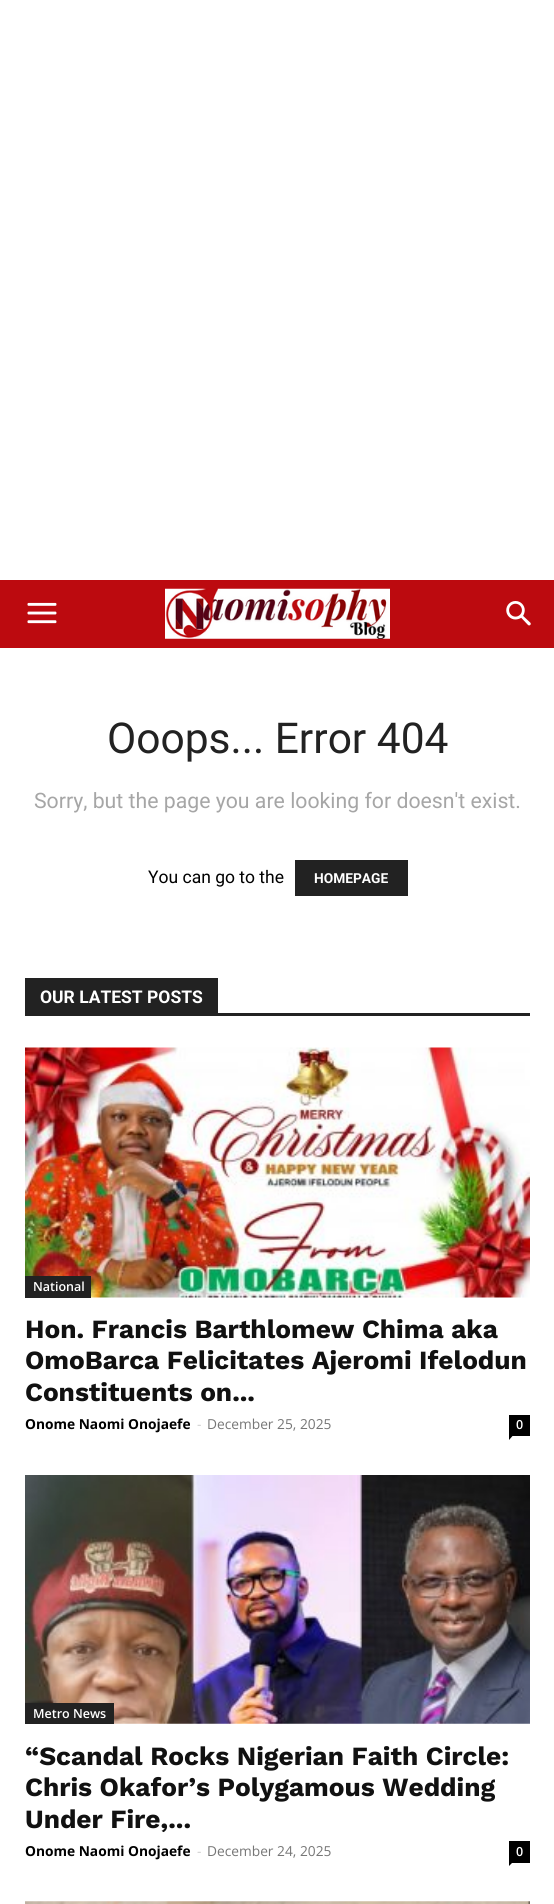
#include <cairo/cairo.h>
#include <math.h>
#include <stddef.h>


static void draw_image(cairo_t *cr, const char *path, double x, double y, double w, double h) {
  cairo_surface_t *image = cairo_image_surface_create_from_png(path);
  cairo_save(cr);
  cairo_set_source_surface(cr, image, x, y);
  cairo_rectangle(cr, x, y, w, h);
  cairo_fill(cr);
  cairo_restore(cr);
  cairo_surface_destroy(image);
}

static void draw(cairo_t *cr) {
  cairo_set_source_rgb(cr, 1, 1, 1);
  cairo_paint(cr);
  cairo_set_source_rgb(cr, 188 / 255.0, 10 / 255.0, 15 / 255.0);
  cairo_rectangle(cr, 0, 580, 554, 68);
  cairo_fill(cr);
  draw_image(cr, "images/1.png", 27, 602, 30, 22);
  draw_image(cr, "images/2.png", 165, 588, 225, 51);
  draw_image(cr, "images/3.png", 506, 601, 25, 25);
  cairo_set_source_rgb(cr, 34 / 255.0, 34 / 255.0, 34 / 255.0);
  cairo_rectangle(cr, 295, 860, 113, 36);
  cairo_fill(cr);
  cairo_rectangle(cr, 25, 1013, 505, 3);
  cairo_fill(cr);
  cairo_rectangle(cr, 25, 978, 193, 35);
  cairo_fill(cr);
  draw_image(cr, "images/4.png", 25, 1047, 505, 251);
  cairo_rectangle(cr, 25, 1276, 66, 22);
  cairo_fill(cr);
  cairo_set_source_rgb(cr, 0, 0, 0);
  cairo_rectangle(cr, 509, 1415, 21, 21);
  cairo_fill(cr);
  cairo_new_path(cr);
  cairo_move_to(cr, 509, 1436);
  cairo_line_to(cr, 512.5, 1436);
  cairo_line_to(cr, 509, 1440);
  cairo_close_path(cr);
  cairo_fill(cr);
  draw_image(cr, "images/5.png", 25, 1475, 505, 249);
  cairo_set_source_rgb(cr, 34 / 255.0, 34 / 255.0, 34 / 255.0);
  cairo_rectangle(cr, 25, 1703, 89, 21);
  cairo_fill(cr);
  cairo_set_source_rgb(cr, 0, 0, 0);
  cairo_rectangle(cr, 509, 1841, 21, 22);
  cairo_fill(cr);
  cairo_new_path(cr);
  cairo_move_to(cr, 509, 1862.5);
  cairo_line_to(cr, 512.5, 1862.5);
  cairo_line_to(cr, 509, 1866);
  cairo_close_path(cr);
  cairo_fill(cr);
  draw_image(cr, "images/6.png", 25, 1901, 505, 3);
  cairo_select_font_face(cr, "Roboto", CAIRO_FONT_SLANT_NORMAL, CAIRO_FONT_WEIGHT_NORMAL);
  cairo_set_font_size(cr, 42.5);
  cairo_set_source_rgb(cr, 34 / 255.0, 34 / 255.0, 34 / 255.0);
  cairo_move_to(cr, 107, 753);
  cairo_show_text(cr, "Ooops... Error 404");
  cairo_set_font_size(cr, 21.25);
  cairo_set_source_rgb(cr, 166 / 255.0, 166 / 255.0, 166 / 255.0);
  cairo_move_to(cr, 34, 808);
  cairo_show_text(cr, "Sorry, but the page you are looking for doesn't exist.");
  cairo_set_font_size(cr, 17.5);
  cairo_set_source_rgb(cr, 0, 0, 0);
  cairo_move_to(cr, 148, 883);
  cairo_show_text(cr, "You can go to the");
  cairo_select_font_face(cr, "Roboto", CAIRO_FONT_SLANT_NORMAL, CAIRO_FONT_WEIGHT_BOLD);
  cairo_set_font_size(cr, 13.75);
  cairo_set_source_rgb(cr, 1, 1, 1);
  cairo_move_to(cr, 314, 883);
  cairo_show_text(cr, "HOMEPAGE");
  cairo_set_font_size(cr, 17.5);
  cairo_move_to(cr, 40, 1003);
  cairo_show_text(cr, "OUR LATEST POSTS");
  cairo_select_font_face(cr, "Open Sans SemiBold", CAIRO_FONT_SLANT_NORMAL, CAIRO_FONT_WEIGHT_NORMAL);
  cairo_set_font_size(cr, 12.5);
  cairo_move_to(cr, 33, 1291);
  cairo_show_text(cr, "National");
  cairo_select_font_face(cr, "Work Sans", CAIRO_FONT_SLANT_NORMAL, CAIRO_FONT_WEIGHT_BOLD);
  cairo_set_font_size(cr, 26.25);
  cairo_set_source_rgb(cr, 17 / 255.0, 17 / 255.0, 17 / 255.0);
  cairo_move_to(cr, 25, 1338);
  cairo_show_text(cr, "Hon. Francis Barthlomew Chima aka");
  cairo_move_to(cr, 25, 1369);
  cairo_show_text(cr, "OmoBarca Felicitates Ajeromi Ifelodun");
  cairo_move_to(cr, 25, 1401);
  cairo_show_text(cr, "Constituents on...");
  cairo_select_font_face(cr, "Open Sans", CAIRO_FONT_SLANT_NORMAL, CAIRO_FONT_WEIGHT_BOLD);
  cairo_set_font_size(cr, 13.75);
  cairo_set_source_rgb(cr, 0, 0, 0);
  cairo_move_to(cr, 25, 1429);
  cairo_show_text(cr, "Onome Naomi Onojaefe");
  cairo_select_font_face(cr, "Open Sans", CAIRO_FONT_SLANT_NORMAL, CAIRO_FONT_WEIGHT_NORMAL);
  cairo_set_source_rgb(cr, 204 / 255.0, 204 / 255.0, 204 / 255.0);
  cairo_move_to(cr, 197, 1429);
  cairo_show_text(cr, "-");
  cairo_set_source_rgb(cr, 118 / 255.0, 118 / 255.0, 118 / 255.0);
  cairo_move_to(cr, 207, 1429);
  cairo_show_text(cr, "December 25, 2025");
  cairo_select_font_face(cr, "Open Sans SemiBold", CAIRO_FONT_SLANT_NORMAL, CAIRO_FONT_WEIGHT_NORMAL);
  cairo_set_font_size(cr, 12.5);
  cairo_set_source_rgb(cr, 1, 1, 1);
  cairo_move_to(cr, 516, 1429);
  cairo_show_text(cr, "0");
  cairo_move_to(cr, 33, 1718);
  cairo_show_text(cr, "Metro News");
  cairo_select_font_face(cr, "Work Sans", CAIRO_FONT_SLANT_NORMAL, CAIRO_FONT_WEIGHT_BOLD);
  cairo_set_font_size(cr, 26.25);
  cairo_set_source_rgb(cr, 17 / 255.0, 17 / 255.0, 17 / 255.0);
  cairo_move_to(cr, 25, 1765);
  cairo_show_text(cr, "“Scandal Rocks Nigerian Faith Circle:");
  cairo_move_to(cr, 25, 1796);
  cairo_show_text(cr, "Chris Okafor’s Polygamous Wedding");
  cairo_move_to(cr, 25, 1828);
  cairo_show_text(cr, "Under Fire,...");
  cairo_select_font_face(cr, "Open Sans", CAIRO_FONT_SLANT_NORMAL, CAIRO_FONT_WEIGHT_BOLD);
  cairo_set_font_size(cr, 13.75);
  cairo_set_source_rgb(cr, 0, 0, 0);
  cairo_move_to(cr, 25, 1856);
  cairo_show_text(cr, "Onome Naomi Onojaefe");
  cairo_select_font_face(cr, "Open Sans", CAIRO_FONT_SLANT_NORMAL, CAIRO_FONT_WEIGHT_NORMAL);
  cairo_set_source_rgb(cr, 204 / 255.0, 204 / 255.0, 204 / 255.0);
  cairo_move_to(cr, 197, 1856);
  cairo_show_text(cr, "-");
  cairo_set_source_rgb(cr, 118 / 255.0, 118 / 255.0, 118 / 255.0);
  cairo_move_to(cr, 207, 1856);
  cairo_show_text(cr, "December 24, 2025");
  cairo_select_font_face(cr, "Open Sans SemiBold", CAIRO_FONT_SLANT_NORMAL, CAIRO_FONT_WEIGHT_NORMAL);
  cairo_set_font_size(cr, 12.5);
  cairo_set_source_rgb(cr, 1, 1, 1);
  cairo_move_to(cr, 516, 1856);
  cairo_show_text(cr, "0");
}

int main(void) {
  cairo_surface_t *surface = cairo_image_surface_create(CAIRO_FORMAT_RGB24, 554, 1904);
  cairo_t *cr = cairo_create(surface);
  cairo_font_options_t *options = cairo_font_options_create();
  cairo_font_options_set_hint_metrics(options, CAIRO_HINT_METRICS_OFF);
  cairo_font_options_set_hint_style(options, CAIRO_HINT_STYLE_NONE);
  cairo_set_font_options(cr, options);
  cairo_set_miter_limit(cr, 4);
  draw(cr);
  cairo_surface_write_to_png(surface, "out.png");
  cairo_font_options_destroy(options);
  cairo_destroy(cr);
  cairo_surface_destroy(surface);
  return 0;
}
